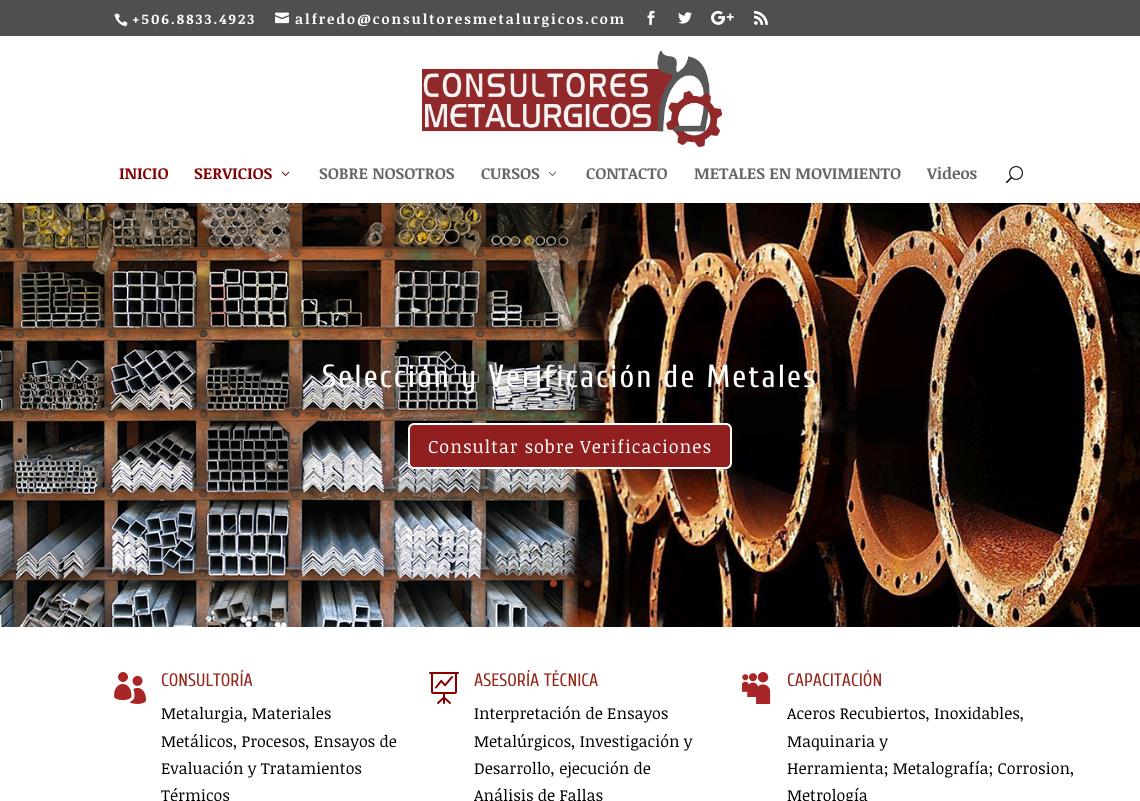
#include <cairo/cairo.h>
#include <math.h>
#include <stddef.h>


static void draw_spaced(cairo_t *cr, double x, double y, const char *s, double letter, double word) {
  cairo_move_to(cr, x, y);
  while (*s) {
    char ch[5] = {0};
    int n = 0;
    do ch[n++] = *s++; while ((*s & 0xC0) == 0x80);
    cairo_show_text(cr, ch);
    cairo_rel_move_to(cr, letter + word * (*ch == ' '), 0);
  }
}

static void rounded_rect(cairo_t *cr, double x, double y, double w, double h, double r) {
  cairo_new_sub_path(cr);
  cairo_arc(cr, x + w - r, y + h - r, r, 0, M_PI / 2);
  cairo_arc(cr, x + r, y + h - r, r, M_PI / 2, M_PI);
  cairo_arc(cr, x + r, y + r, r, M_PI, 1.5 * M_PI);
  cairo_arc(cr, x + w - r, y + r, r, 1.5 * M_PI, 2 * M_PI);
  cairo_close_path(cr);
}

static void draw_image(cairo_t *cr, const char *path, double x, double y, double w, double h) {
  cairo_surface_t *image = cairo_image_surface_create_from_png(path);
  cairo_save(cr);
  cairo_set_source_surface(cr, image, x, y);
  cairo_rectangle(cr, x, y, w, h);
  cairo_fill(cr);
  cairo_restore(cr);
  cairo_surface_destroy(image);
}

static void draw(cairo_t *cr) {
  cairo_set_source_rgb(cr, 1, 1, 1);
  cairo_paint(cr);
  cairo_set_source_rgb(cr, 79 / 255.0, 79 / 255.0, 79 / 255.0);
  cairo_rectangle(cr, 0, 0, 1140, 36);
  cairo_fill(cr);
  draw_image(cr, "images/1.png", 114, 13, 14, 14);
  draw_image(cr, "images/2.png", 275, 12, 14, 12);
  draw_image(cr, "images/3.png", 647, 10, 8, 15);
  draw_image(cr, "images/4.png", 678, 12, 14, 12);
  draw_image(cr, "images/5.png", 711, 10, 23, 15);
  draw_image(cr, "images/6.png", 754, 10, 14, 15);
  draw_image(cr, "images/11.png", 0, 203, 1140, 424);
  cairo_set_source_rgba(cr, 0, 0, 0, 0.1);
  cairo_rectangle(cr, 0, 203, 1140, 1);
  cairo_fill(cr);
  draw_image(cr, "images/7.png", 422, 51, 300, 96);
  draw_image(cr, "images/8.png", 281, 171, 9, 5);
  draw_image(cr, "images/9.png", 548, 171, 9, 5);
  draw_image(cr, "images/10.png", 1006, 166, 17, 18);
  cairo_set_source_rgb(cr, 145 / 255.0, 31 / 255.0, 31 / 255.0);
  rounded_rect(cr, 409, 424, 322, 44, 5);
  cairo_fill_preserve(cr);
  cairo_set_source_rgb(cr, 1, 1, 1);
  cairo_stroke(cr);
  cairo_set_source_rgb(cr, 160 / 255.0, 59 / 255.0, 33 / 255.0);
  cairo_arc(cr, 553.5, 583.5, 3.5, 0, 2 * M_PI);
  cairo_fill(cr);
  cairo_set_source_rgba(cr, 160 / 255.0, 59 / 255.0, 33 / 255.0, 0.5);
  cairo_arc(cr, 570.5, 583.5, 3.5, 0, 2 * M_PI);
  cairo_fill(cr);
  cairo_arc(cr, 587.5, 583.5, 3.5, 0, 2 * M_PI);
  cairo_fill(cr);
  draw_image(cr, "images/12.png", 114, 672, 32, 32);
  draw_image(cr, "images/13.png", 429, 672, 30, 32);
  draw_image(cr, "images/14.png", 742, 672, 29, 32);
  cairo_select_font_face(cr, "Noticia Text", CAIRO_FONT_SLANT_NORMAL, CAIRO_FONT_WEIGHT_BOLD);
  cairo_set_font_size(cr, 14);
  cairo_set_source_rgb(cr, 1, 1, 1);
  draw_spaced(cr, 132, 24, "+506.8833.4923", 2, 0);
  draw_spaced(cr, 295, 24, "alfredo@consultoresmetalurgicos.com", 2, 0);
  cairo_set_font_size(cr, 16);
  cairo_set_source_rgb(cr, 132 / 255.0, 1 / 255.0, 1 / 255.0);
  cairo_move_to(cr, 119, 179);
  cairo_show_text(cr, "INICIO");
  cairo_move_to(cr, 194, 179);
  cairo_show_text(cr, "SERVICIOS");
  cairo_set_source_rgb(cr, 102 / 255.0, 102 / 255.0, 102 / 255.0);
  cairo_move_to(cr, 319, 179);
  cairo_show_text(cr, "SOBRE NOSOTROS");
  cairo_move_to(cr, 481, 179);
  cairo_show_text(cr, "CURSOS");
  cairo_move_to(cr, 586, 179);
  cairo_show_text(cr, "CONTACTO");
  cairo_move_to(cr, 694, 179);
  cairo_show_text(cr, "METALES EN MOVIMIENTO");
  cairo_move_to(cr, 927, 179);
  cairo_show_text(cr, "Videos");
  cairo_select_font_face(cr, "Cuprum", CAIRO_FONT_SLANT_NORMAL, CAIRO_FONT_WEIGHT_NORMAL);
  cairo_set_font_size(cr, 32);
  cairo_set_source_rgb(cr, 1, 1, 1);
  draw_spaced(cr, 322, 387, "Selección y Verificación de Metales", 2, 0);
  cairo_select_font_face(cr, "Noticia Text", CAIRO_FONT_SLANT_NORMAL, CAIRO_FONT_WEIGHT_NORMAL);
  cairo_set_font_size(cr, 18);
  draw_spaced(cr, 428, 453, "Consultar sobre Verificaciones", 1, 0);
  cairo_select_font_face(cr, "Cuprum", CAIRO_FONT_SLANT_NORMAL, CAIRO_FONT_WEIGHT_NORMAL);
  cairo_set_source_rgb(cr, 147 / 255.0, 41 / 255.0, 29 / 255.0);
  cairo_move_to(cr, 161, 686);
  cairo_show_text(cr, "CONSULTORÍA");
  cairo_select_font_face(cr, "Noticia Text", CAIRO_FONT_SLANT_NORMAL, CAIRO_FONT_WEIGHT_NORMAL);
  cairo_set_font_size(cr, 16);
  cairo_set_source_rgb(cr, 0, 0, 0);
  cairo_move_to(cr, 161, 719);
  cairo_show_text(cr, "Metalurgia, Materiales");
  cairo_move_to(cr, 161, 747);
  cairo_show_text(cr, "Metálicos, Procesos, Ensayos de");
  cairo_move_to(cr, 161, 774);
  cairo_show_text(cr, "Evaluación y Tratamientos");
  cairo_move_to(cr, 161, 801);
  cairo_show_text(cr, "Térmicos");
  cairo_select_font_face(cr, "Cuprum", CAIRO_FONT_SLANT_NORMAL, CAIRO_FONT_WEIGHT_NORMAL);
  cairo_set_font_size(cr, 18);
  cairo_set_source_rgb(cr, 147 / 255.0, 41 / 255.0, 29 / 255.0);
  cairo_move_to(cr, 474, 686);
  cairo_show_text(cr, "ASESORÍA TÉCNICA");
  cairo_select_font_face(cr, "Noticia Text", CAIRO_FONT_SLANT_NORMAL, CAIRO_FONT_WEIGHT_NORMAL);
  cairo_set_font_size(cr, 16);
  cairo_set_source_rgb(cr, 0, 0, 0);
  cairo_move_to(cr, 474, 719);
  cairo_show_text(cr, "Interpretación de Ensayos");
  cairo_move_to(cr, 474, 747);
  cairo_show_text(cr, "Metalúrgicos, Investigación y");
  cairo_move_to(cr, 474, 774);
  cairo_show_text(cr, "Desarrollo, ejecución de");
  cairo_move_to(cr, 474, 801);
  cairo_show_text(cr, "Análisis de Fallas");
  cairo_select_font_face(cr, "Cuprum", CAIRO_FONT_SLANT_NORMAL, CAIRO_FONT_WEIGHT_NORMAL);
  cairo_set_font_size(cr, 18);
  cairo_set_source_rgb(cr, 147 / 255.0, 41 / 255.0, 29 / 255.0);
  cairo_move_to(cr, 787, 686);
  cairo_show_text(cr, "CAPACITACIÓN");
  cairo_select_font_face(cr, "Noticia Text", CAIRO_FONT_SLANT_NORMAL, CAIRO_FONT_WEIGHT_NORMAL);
  cairo_set_font_size(cr, 16);
  cairo_set_source_rgb(cr, 0, 0, 0);
  cairo_move_to(cr, 787, 719);
  cairo_show_text(cr, "Aceros Recubiertos, Inoxidables,");
  cairo_move_to(cr, 787, 747);
  cairo_show_text(cr, "Maquinaria y");
  cairo_move_to(cr, 787, 774);
  cairo_show_text(cr, "Herramienta; Metalografía; Corrosion,");
  cairo_move_to(cr, 787, 801);
  cairo_show_text(cr, "Metrología");
}

int main(void) {
  cairo_surface_t *surface = cairo_image_surface_create(CAIRO_FORMAT_RGB24, 1140, 801);
  cairo_t *cr = cairo_create(surface);
  cairo_font_options_t *options = cairo_font_options_create();
  cairo_font_options_set_hint_metrics(options, CAIRO_HINT_METRICS_OFF);
  cairo_font_options_set_hint_style(options, CAIRO_HINT_STYLE_NONE);
  cairo_set_font_options(cr, options);
  cairo_set_miter_limit(cr, 4);
  draw(cr);
  cairo_surface_write_to_png(surface, "out.png");
  cairo_font_options_destroy(options);
  cairo_destroy(cr);
  cairo_surface_destroy(surface);
  return 0;
}
